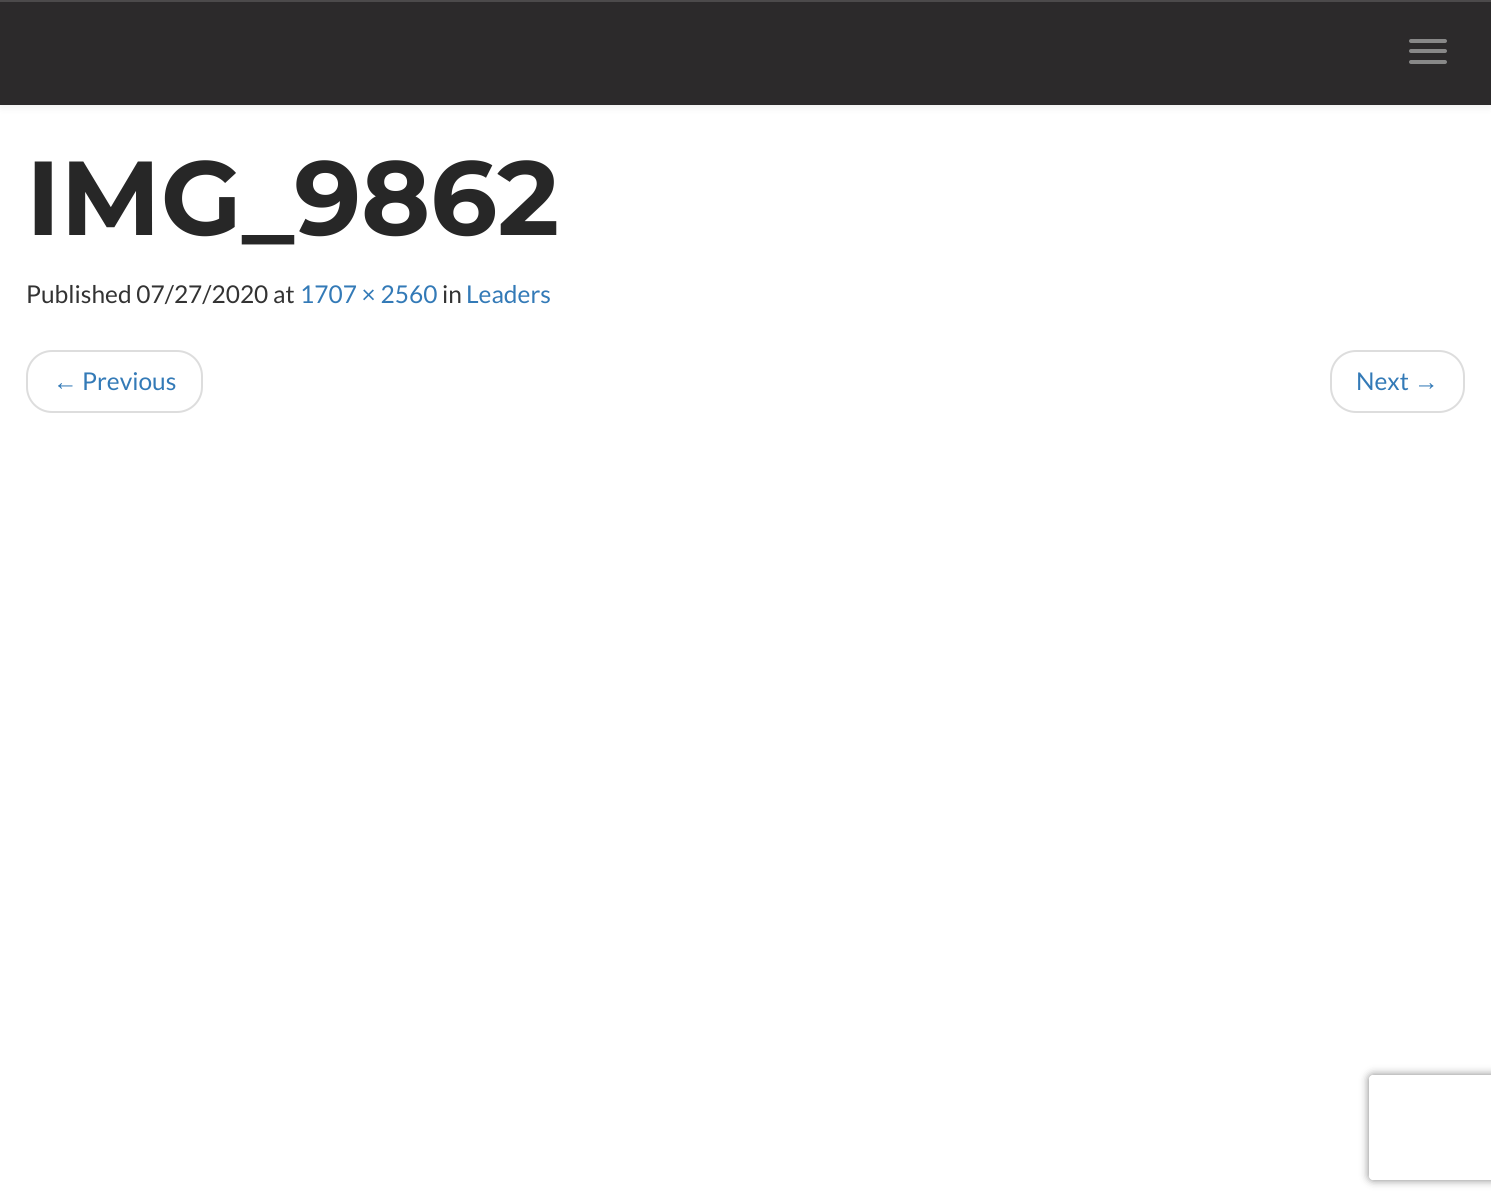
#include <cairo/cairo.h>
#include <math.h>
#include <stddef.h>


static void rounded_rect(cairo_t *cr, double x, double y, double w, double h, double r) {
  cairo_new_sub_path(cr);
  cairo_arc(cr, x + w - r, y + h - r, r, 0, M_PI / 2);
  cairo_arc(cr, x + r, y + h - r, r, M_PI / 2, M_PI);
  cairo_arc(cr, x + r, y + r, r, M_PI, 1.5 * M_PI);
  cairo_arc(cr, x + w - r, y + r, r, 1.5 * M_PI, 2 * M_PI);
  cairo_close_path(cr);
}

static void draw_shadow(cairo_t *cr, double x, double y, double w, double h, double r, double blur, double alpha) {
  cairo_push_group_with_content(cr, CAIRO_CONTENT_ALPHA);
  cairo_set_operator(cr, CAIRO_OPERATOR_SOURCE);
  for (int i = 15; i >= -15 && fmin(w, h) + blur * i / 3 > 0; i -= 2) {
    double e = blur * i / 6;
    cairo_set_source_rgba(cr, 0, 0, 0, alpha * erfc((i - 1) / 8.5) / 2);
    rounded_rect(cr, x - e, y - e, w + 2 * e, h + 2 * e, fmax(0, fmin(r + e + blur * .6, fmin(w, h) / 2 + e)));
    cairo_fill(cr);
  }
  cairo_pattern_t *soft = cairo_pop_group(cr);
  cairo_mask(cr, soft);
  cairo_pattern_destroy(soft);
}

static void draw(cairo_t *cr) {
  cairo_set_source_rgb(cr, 1, 1, 1);
  cairo_paint(cr);
  cairo_set_source_rgb(cr, 0, 0, 0);
  draw_shadow(cr, 0, 2, 1491, 105, 0, 4.5, 0.07);
  cairo_set_source_rgb(cr, 44 / 255.0, 42 / 255.0, 43 / 255.0);
  cairo_rectangle(cr, 0, 2, 1491, 103);
  cairo_fill(cr);
  cairo_set_source_rgb(cr, 76 / 255.0, 74 / 255.0, 75 / 255.0);
  cairo_rectangle(cr, 0, 0, 1491, 2);
  cairo_fill(cr);
  cairo_set_source_rgb(cr, 136 / 255.0, 136 / 255.0, 136 / 255.0);
  rounded_rect(cr, 1409, 39, 38, 4, 2);
  cairo_fill(cr);
  rounded_rect(cr, 1409, 49, 38, 4, 2);
  cairo_fill(cr);
  rounded_rect(cr, 1409, 60, 38, 4, 2);
  cairo_fill(cr);
  rounded_rect(cr, 27, 351, 175, 61, 25);
  cairo_set_source_rgb(cr, 221 / 255.0, 221 / 255.0, 221 / 255.0);
  cairo_stroke(cr);
  rounded_rect(cr, 1331, 351, 133, 61, 25);
  cairo_stroke(cr);
  cairo_save(cr);
  cairo_set_fill_rule(cr, CAIRO_FILL_RULE_EVEN_ODD);
  cairo_new_path(cr);
  cairo_move_to(cr, 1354, 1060);
  cairo_line_to(cr, 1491, 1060);
  cairo_line_to(cr, 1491, 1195);
  cairo_line_to(cr, 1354, 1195);
  cairo_close_path(cr);
  cairo_move_to(cr, 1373, 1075);
  cairo_line_to(cr, 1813, 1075);
  cairo_curve_to(cr, 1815, 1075, 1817, 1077, 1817, 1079);
  cairo_line_to(cr, 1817, 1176);
  cairo_curve_to(cr, 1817, 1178, 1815, 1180, 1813, 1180);
  cairo_line_to(cr, 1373, 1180);
  cairo_curve_to(cr, 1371, 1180, 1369, 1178, 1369, 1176);
  cairo_line_to(cr, 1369, 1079);
  cairo_curve_to(cr, 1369, 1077, 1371, 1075, 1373, 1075);
  cairo_close_path(cr);
  cairo_clip(cr);
  cairo_set_source_rgb(cr, 128 / 255.0, 128 / 255.0, 128 / 255.0);
  draw_shadow(cr, 1369, 1075, 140, 105, 4, 4.5, 1);
  cairo_restore(cr);
  cairo_select_font_face(cr, "Montserrat", CAIRO_FONT_SLANT_NORMAL, CAIRO_FONT_WEIGHT_BOLD);
  cairo_set_font_size(cr, 105);
  cairo_set_source_rgb(cr, 39 / 255.0, 39 / 255.0, 39 / 255.0);
  cairo_move_to(cr, 26, 235);
  cairo_show_text(cr, "IMG_9862");
  cairo_select_font_face(cr, "Lato", CAIRO_FONT_SLANT_NORMAL, CAIRO_FONT_WEIGHT_NORMAL);
  cairo_set_font_size(cr, 24.5);
  cairo_set_source_rgb(cr, 51 / 255.0, 51 / 255.0, 51 / 255.0);
  cairo_move_to(cr, 26, 303);
  cairo_show_text(cr, "Published 07/27/2020 at");
  cairo_set_source_rgb(cr, 51 / 255.0, 122 / 255.0, 183 / 255.0);
  cairo_move_to(cr, 300, 303);
  cairo_show_text(cr, "1707 × 2560");
  cairo_set_source_rgb(cr, 51 / 255.0, 51 / 255.0, 51 / 255.0);
  cairo_move_to(cr, 442, 303);
  cairo_show_text(cr, "in");
  cairo_set_source_rgb(cr, 51 / 255.0, 122 / 255.0, 183 / 255.0);
  cairo_move_to(cr, 466, 303);
  cairo_show_text(cr, "Leaders");
  cairo_select_font_face(cr, "Liberation Sans", CAIRO_FONT_SLANT_NORMAL, CAIRO_FONT_WEIGHT_NORMAL);
  cairo_move_to(cr, 53, 390);
  cairo_show_text(cr, "←");
  cairo_select_font_face(cr, "Lato", CAIRO_FONT_SLANT_NORMAL, CAIRO_FONT_WEIGHT_NORMAL);
  cairo_move_to(cr, 82, 390);
  cairo_show_text(cr, "Previous");
  cairo_move_to(cr, 1356, 390);
  cairo_show_text(cr, "Next");
  cairo_select_font_face(cr, "Liberation Sans", CAIRO_FONT_SLANT_NORMAL, CAIRO_FONT_WEIGHT_NORMAL);
  cairo_move_to(cr, 1414, 390);
  cairo_show_text(cr, "→");
}

int main(void) {
  cairo_surface_t *surface = cairo_image_surface_create(CAIRO_FORMAT_RGB24, 1491, 1204);
  cairo_t *cr = cairo_create(surface);
  cairo_font_options_t *options = cairo_font_options_create();
  cairo_font_options_set_hint_metrics(options, CAIRO_HINT_METRICS_OFF);
  cairo_font_options_set_hint_style(options, CAIRO_HINT_STYLE_NONE);
  cairo_set_font_options(cr, options);
  cairo_set_miter_limit(cr, 4);
  draw(cr);
  cairo_surface_write_to_png(surface, "out.png");
  cairo_font_options_destroy(options);
  cairo_destroy(cr);
  cairo_surface_destroy(surface);
  return 0;
}
